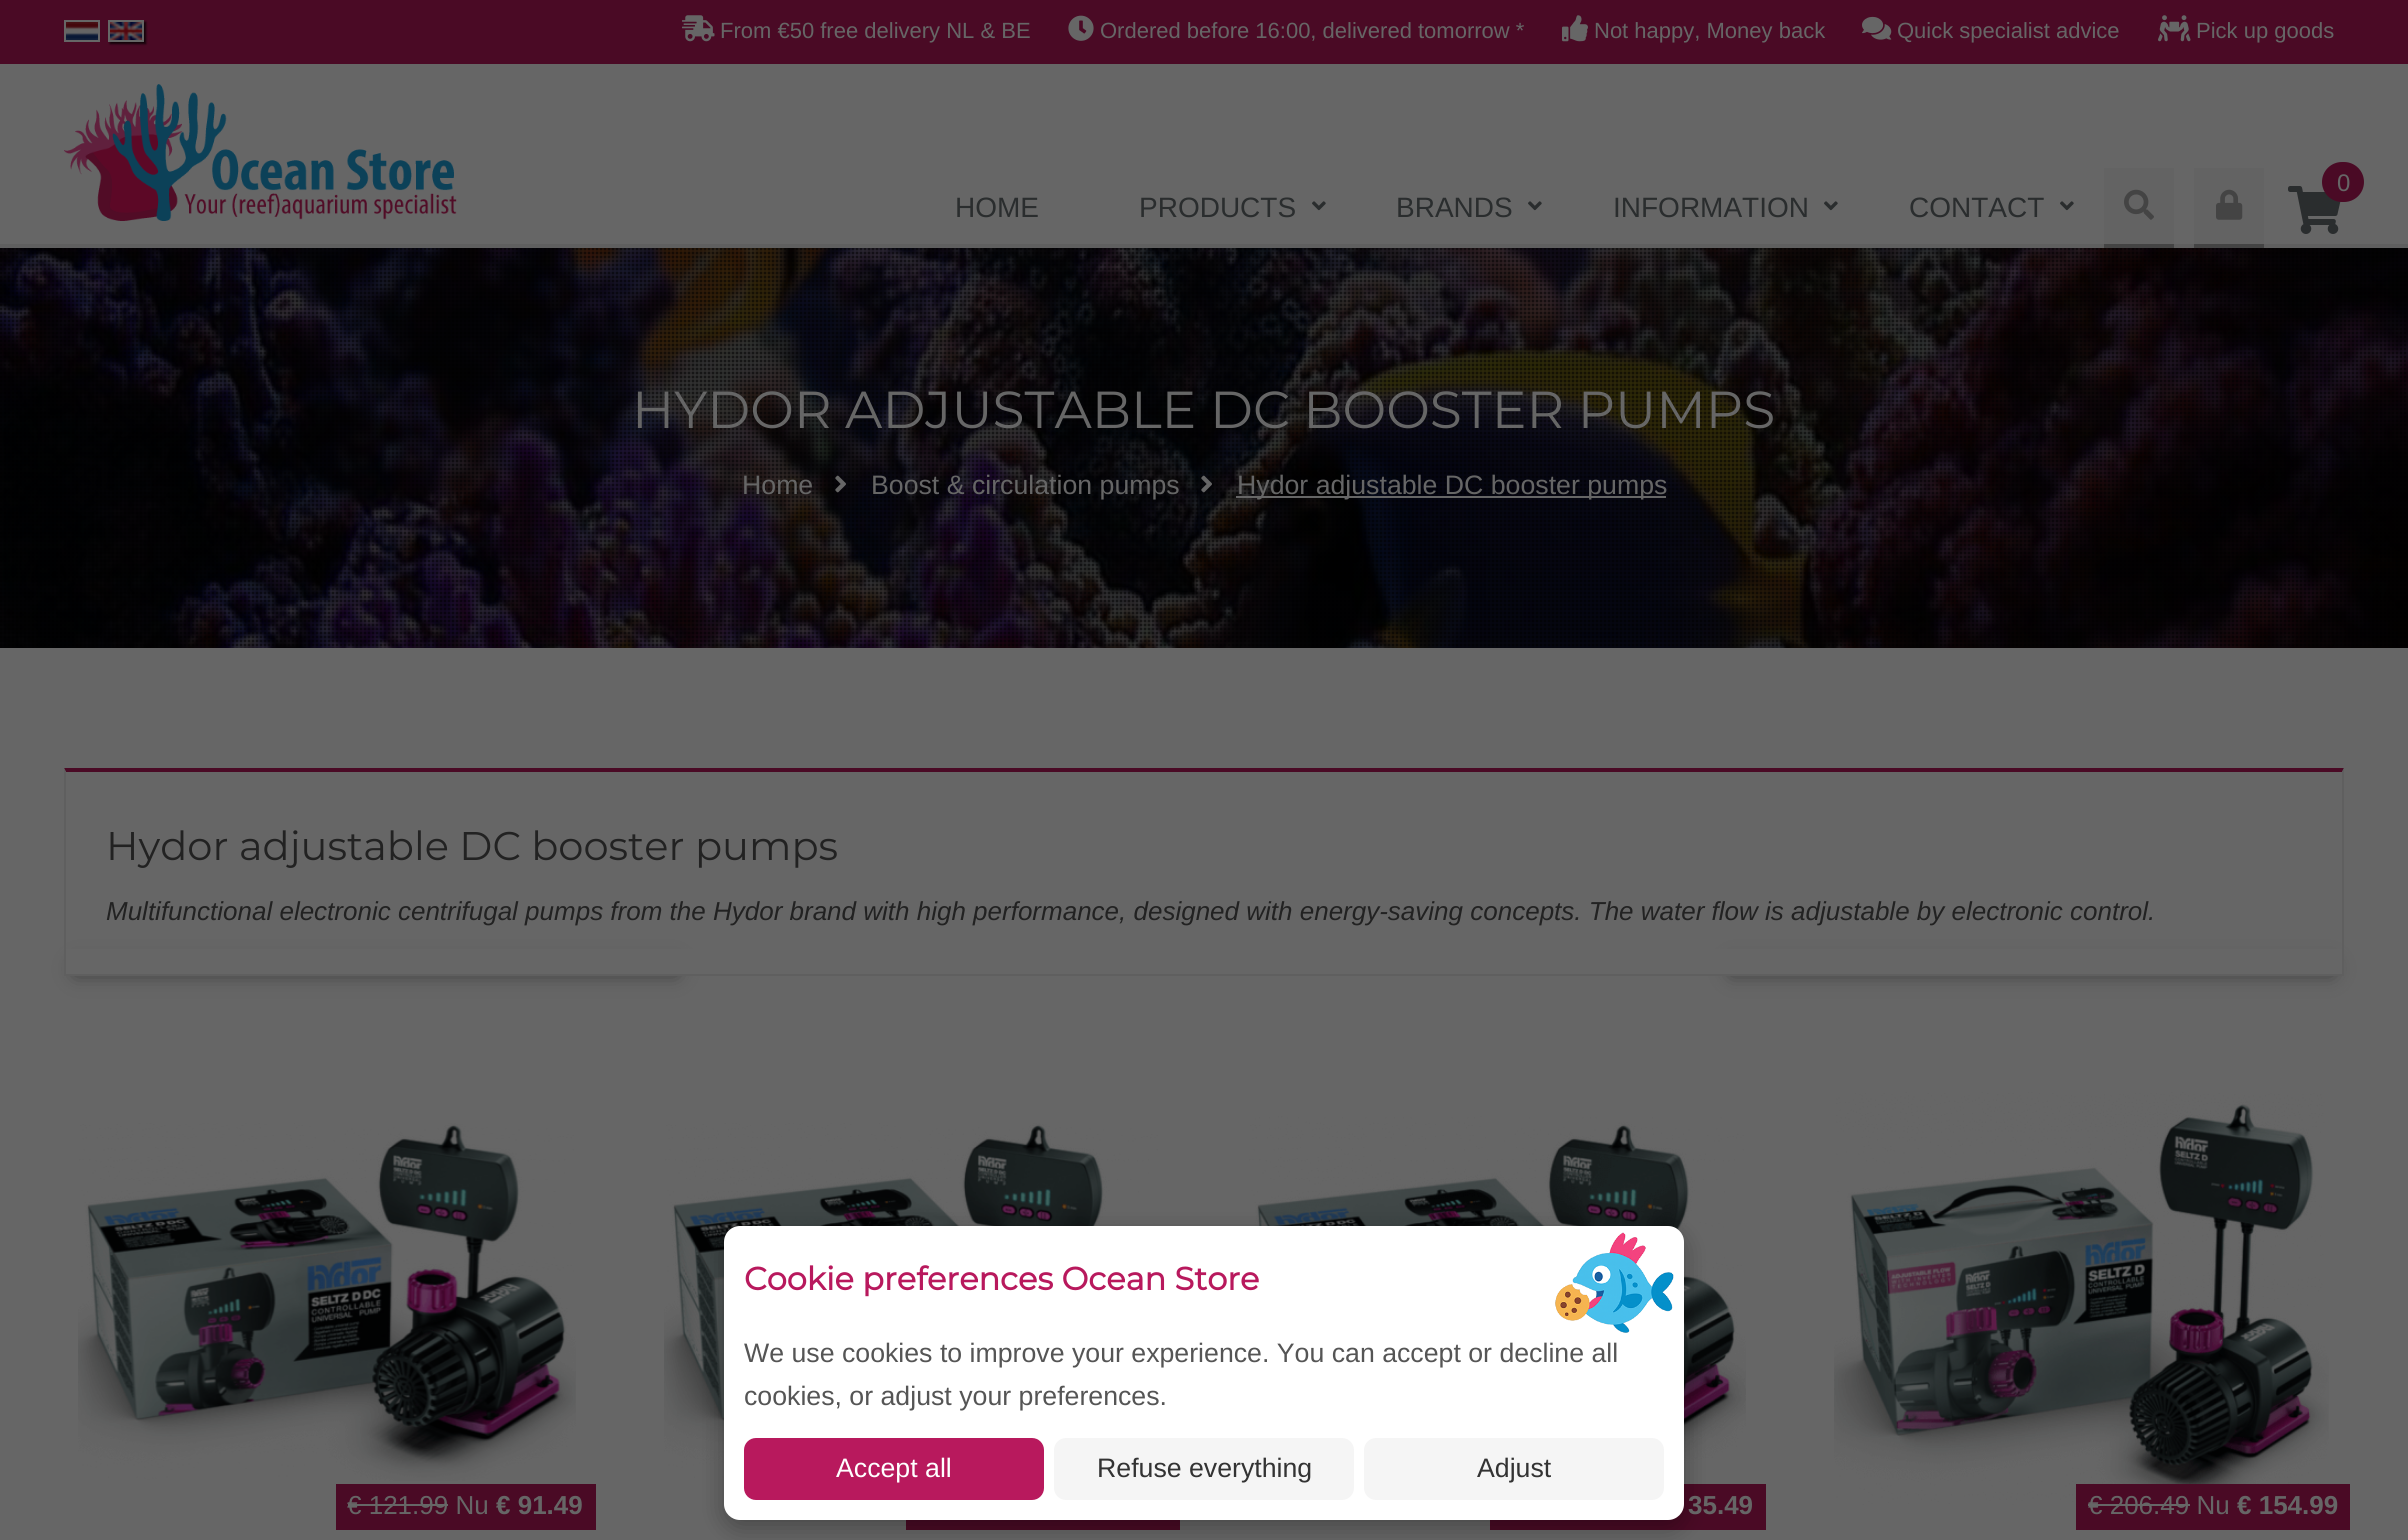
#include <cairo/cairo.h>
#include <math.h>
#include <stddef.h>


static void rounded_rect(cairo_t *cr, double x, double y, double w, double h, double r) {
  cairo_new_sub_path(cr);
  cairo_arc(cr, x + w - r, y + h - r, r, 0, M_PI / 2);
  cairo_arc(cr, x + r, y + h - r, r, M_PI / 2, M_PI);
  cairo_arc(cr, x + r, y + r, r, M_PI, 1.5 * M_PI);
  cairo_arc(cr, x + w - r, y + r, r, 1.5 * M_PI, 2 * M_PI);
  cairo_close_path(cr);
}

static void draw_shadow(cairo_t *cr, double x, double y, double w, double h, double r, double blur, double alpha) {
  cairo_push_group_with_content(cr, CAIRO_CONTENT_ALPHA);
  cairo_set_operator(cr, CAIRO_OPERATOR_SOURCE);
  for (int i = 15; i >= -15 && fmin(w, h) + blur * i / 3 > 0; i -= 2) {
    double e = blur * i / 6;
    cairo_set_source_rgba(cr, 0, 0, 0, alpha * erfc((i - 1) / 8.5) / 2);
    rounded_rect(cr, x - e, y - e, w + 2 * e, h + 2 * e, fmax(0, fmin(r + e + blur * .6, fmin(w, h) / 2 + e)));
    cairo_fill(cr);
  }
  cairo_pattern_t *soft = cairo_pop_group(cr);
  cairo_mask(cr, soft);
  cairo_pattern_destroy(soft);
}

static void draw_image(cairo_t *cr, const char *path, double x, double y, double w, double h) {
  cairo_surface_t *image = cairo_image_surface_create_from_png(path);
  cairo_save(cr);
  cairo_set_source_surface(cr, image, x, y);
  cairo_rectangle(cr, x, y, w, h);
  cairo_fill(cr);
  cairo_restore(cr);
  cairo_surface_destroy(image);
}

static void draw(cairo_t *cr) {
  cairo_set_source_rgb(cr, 102 / 255.0, 102 / 255.0, 102 / 255.0);
  cairo_paint(cr);
  cairo_set_source_rgb(cr, 95 / 255.0, 95 / 255.0, 95 / 255.0);
  cairo_rectangle(cr, 0, 244, 2408, 4);
  cairo_fill(cr);
  cairo_set_source_rgb(cr, 74 / 255.0, 10 / 255.0, 37 / 255.0);
  cairo_rectangle(cr, 0, 0, 2408, 64);
  cairo_fill(cr);
  cairo_rectangle(cr, 65, 21, 34, 20);
  cairo_set_source_rgb(cr, 102 / 255.0, 102 / 255.0, 102 / 255.0);
  cairo_stroke(cr);
  cairo_set_source_rgb(cr, 0, 0, 0);
  draw_shadow(cr, 110, 22, 36, 22, 0, 1, 0.75);
  draw_image(cr, "images/1.png", 66, 22, 32, 18);
  cairo_rectangle(cr, 109, 21, 34, 20);
  cairo_set_source_rgb(cr, 102 / 255.0, 102 / 255.0, 102 / 255.0);
  cairo_stroke(cr);
  draw_image(cr, "images/2.png", 110, 22, 32, 18);
  draw_image(cr, "images/3.png", 682, 15, 33, 27);
  draw_image(cr, "images/4.png", 1068, 15, 26, 26);
  draw_image(cr, "images/5.png", 1562, 15, 26, 27);
  draw_image(cr, "images/6.png", 1862, 16, 30, 24);
  draw_image(cr, "images/7.png", 2158, 15, 33, 27);
  draw_image(cr, "images/8.png", 64, 84, 393, 137);
  cairo_set_source_rgb(cr, 99 / 255.0, 99 / 255.0, 99 / 255.0);
  cairo_rectangle(cr, 2104, 168, 70, 76);
  cairo_fill(cr);
  cairo_set_source_rgb(cr, 68 / 255.0, 68 / 255.0, 68 / 255.0);
  cairo_rectangle(cr, 2104, 244, 70, 4);
  cairo_fill(cr);
  draw_image(cr, "images/9.png", 2124, 189, 30, 31);
  cairo_set_source_rgb(cr, 99 / 255.0, 99 / 255.0, 99 / 255.0);
  cairo_rectangle(cr, 2194, 168, 70, 76);
  cairo_fill(cr);
  cairo_set_source_rgb(cr, 68 / 255.0, 68 / 255.0, 68 / 255.0);
  cairo_rectangle(cr, 2194, 244, 70, 4);
  cairo_fill(cr);
  draw_image(cr, "images/10.png", 2216, 189, 27, 31);
  draw_image(cr, "images/11.png", 2288, 186, 53, 48);
  cairo_set_source_rgb(cr, 74 / 255.0, 10 / 255.0, 37 / 255.0);
  rounded_rect(cr, 2322, 162, 42, 40, 20);
  cairo_fill(cr);
  draw_image(cr, "images/12.png", 1312, 201, 14, 10);
  draw_image(cr, "images/12.png", 1528, 201, 14, 10);
  draw_image(cr, "images/12.png", 1824, 201, 14, 10);
  draw_image(cr, "images/12.png", 2060, 201, 14, 10);
  draw_image(cr, "images/13.png", 0, 248, 2408, 400);
  draw_image(cr, "images/14.png", 0, 248, 2408, 400);
  draw_image(cr, "images/15.png", 835, 475, 11, 18);
  draw_image(cr, "images/16.png", 1201, 475, 11, 18);
  cairo_set_source_rgb(cr, 102 / 255.0, 102 / 255.0, 102 / 255.0);
  cairo_rectangle(cr, 1236, 496, 430, 2);
  cairo_fill(cr);
  cairo_set_source_rgb(cr, 61 / 255.0, 61 / 255.0, 61 / 255.0);
  draw_shadow(cr, 76, 964, 600, 10, 0, 10, 1);
  draw_shadow(cr, 1732, 964, 600, 10, 0, 10, 1);
  cairo_set_source_rgb(cr, 102 / 255.0, 102 / 255.0, 102 / 255.0);
  cairo_rectangle(cr, 66, 949, 2276, 25);
  cairo_fill(cr);
  cairo_set_source_rgb(cr, 74 / 255.0, 10 / 255.0, 37 / 255.0);
  cairo_new_path(cr);
  cairo_move_to(cr, 64, 768);
  cairo_line_to(cr, 2344, 768);
  cairo_line_to(cr, 2342, 772);
  cairo_line_to(cr, 66, 772);
  cairo_close_path(cr);
  cairo_fill(cr);
  cairo_set_source_rgb(cr, 95 / 255.0, 95 / 255.0, 95 / 255.0);
  cairo_new_path(cr);
  cairo_move_to(cr, 2344, 768);
  cairo_line_to(cr, 2344, 976);
  cairo_line_to(cr, 2342, 974);
  cairo_line_to(cr, 2342, 772);
  cairo_close_path(cr);
  cairo_fill(cr);
  cairo_rectangle(cr, 64, 974, 2280, 2);
  cairo_fill(cr);
  cairo_new_path(cr);
  cairo_move_to(cr, 64, 976);
  cairo_line_to(cr, 64, 768);
  cairo_line_to(cr, 66, 772);
  cairo_line_to(cr, 66, 974);
  cairo_close_path(cr);
  cairo_fill(cr);
  draw_image(cr, "images/17.png", 78, 1123, 498, 358);
  cairo_set_source_rgb(cr, 74 / 255.0, 10 / 255.0, 37 / 255.0);
  cairo_rectangle(cr, 336, 1484, 260, 46);
  cairo_fill(cr);
  cairo_set_source_rgb(cr, 102 / 255.0, 102 / 255.0, 102 / 255.0);
  cairo_rectangle(cr, 348, 1504, 100, 2);
  cairo_fill(cr);
  draw_image(cr, "images/18.png", 664, 1123, 496, 358);
  cairo_set_source_rgb(cr, 74 / 255.0, 10 / 255.0, 37 / 255.0);
  cairo_rectangle(cr, 906, 1520, 274, 10);
  cairo_fill(cr);
  draw_image(cr, "images/19.png", 1248, 1116, 498, 365);
  cairo_rectangle(cr, 1490, 1484, 276, 46);
  cairo_fill(cr);
  draw_image(cr, "images/20.png", 1834, 1092, 495, 413);
  cairo_rectangle(cr, 2076, 1484, 274, 46);
  cairo_fill(cr);
  cairo_set_source_rgb(cr, 102 / 255.0, 102 / 255.0, 102 / 255.0);
  cairo_rectangle(cr, 2088, 1504, 102, 2);
  cairo_fill(cr);
  cairo_set_source_rgb(cr, 0, 0, 0);
  draw_shadow(cr, 724, 1234, 960, 294, 16, 12, 0.3);
  cairo_set_source_rgb(cr, 1, 1, 1);
  rounded_rect(cr, 724, 1226, 960, 294, 16);
  cairo_fill(cr);
  draw_image(cr, "images/21.png", 1555, 1232, 119, 101);
  cairo_set_source_rgb(cr, 184 / 255.0, 25 / 255.0, 93 / 255.0);
  rounded_rect(cr, 744, 1438, 300, 62, 12);
  cairo_fill(cr);
  cairo_set_source_rgb(cr, 245 / 255.0, 245 / 255.0, 245 / 255.0);
  rounded_rect(cr, 1054, 1438, 300, 62, 12);
  cairo_fill(cr);
  rounded_rect(cr, 1364, 1438, 300, 62, 12);
  cairo_fill(cr);
  cairo_select_font_face(cr, "Liberation Sans", CAIRO_FONT_SLANT_NORMAL, CAIRO_FONT_WEIGHT_NORMAL);
  cairo_set_font_size(cr, 22);
  cairo_set_source_rgb(cr, 102 / 255.0, 102 / 255.0, 102 / 255.0);
  cairo_move_to(cr, 720, 38);
  cairo_show_text(cr, "From €50 free delivery NL & BE");
  cairo_move_to(cr, 1100, 38);
  cairo_show_text(cr, "Ordered before 16:00, delivered tomorrow *");
  cairo_move_to(cr, 1594, 38);
  cairo_show_text(cr, "Not happy, Money back");
  cairo_move_to(cr, 1897, 38);
  cairo_show_text(cr, "Quick specialist advice");
  cairo_move_to(cr, 2196, 38);
  cairo_show_text(cr, "Pick up goods");
  cairo_set_font_size(cr, 24);
  cairo_move_to(cr, 2337, 191);
  cairo_show_text(cr, "0");
  cairo_set_font_size(cr, 28);
  cairo_set_source_rgb(cr, 42 / 255.0, 45 / 255.0, 46 / 255.0);
  cairo_move_to(cr, 955, 217);
  cairo_show_text(cr, "HOME");
  cairo_move_to(cr, 1139, 217);
  cairo_show_text(cr, "PRODUCTS");
  cairo_move_to(cr, 1396, 217);
  cairo_show_text(cr, "BRANDS");
  cairo_move_to(cr, 1613, 217);
  cairo_show_text(cr, "INFORMATION");
  cairo_move_to(cr, 1909, 217);
  cairo_show_text(cr, "CONTACT");
  cairo_select_font_face(cr, "Montserrat Thin", CAIRO_FONT_SLANT_NORMAL, CAIRO_FONT_WEIGHT_NORMAL);
  cairo_set_font_size(cr, 52);
  cairo_set_source_rgb(cr, 102 / 255.0, 102 / 255.0, 102 / 255.0);
  cairo_move_to(cr, 632, 428);
  cairo_show_text(cr, "HYDOR ADJUSTABLE DC BOOSTER PUMPS");
  cairo_select_font_face(cr, "Liberation Sans", CAIRO_FONT_SLANT_NORMAL, CAIRO_FONT_WEIGHT_NORMAL);
  cairo_set_font_size(cr, 26.7);
  cairo_move_to(cr, 742, 494);
  cairo_show_text(cr, "Home");
  cairo_move_to(cr, 871, 494);
  cairo_show_text(cr, "Boost & circulation pumps");
  cairo_move_to(cr, 1237, 494);
  cairo_show_text(cr, "Hydor adjustable DC booster pumps");
  cairo_select_font_face(cr, "Montserrat Thin", CAIRO_FONT_SLANT_NORMAL, CAIRO_FONT_WEIGHT_NORMAL);
  cairo_set_font_size(cr, 40);
  cairo_set_source_rgb(cr, 34 / 255.0, 34 / 255.0, 34 / 255.0);
  cairo_move_to(cr, 106, 860);
  cairo_show_text(cr, "Hydor adjustable DC booster pumps");
  cairo_select_font_face(cr, "Liberation Sans", CAIRO_FONT_SLANT_ITALIC, CAIRO_FONT_WEIGHT_NORMAL);
  cairo_set_font_size(cr, 26);
  cairo_move_to(cr, 106, 920);
  cairo_show_text(cr, "Multifunctional electronic centrifugal pumps from the Hydor brand with high performance, designed with energy-saving concepts. The water flow is adjustable by electronic control.");
  cairo_select_font_face(cr, "Liberation Sans", CAIRO_FONT_SLANT_NORMAL, CAIRO_FONT_WEIGHT_NORMAL);
  cairo_set_source_rgb(cr, 102 / 255.0, 102 / 255.0, 102 / 255.0);
  cairo_move_to(cr, 347, 1514);
  cairo_show_text(cr, "€ 121.99 Nu");
  cairo_select_font_face(cr, "Liberation Sans", CAIRO_FONT_SLANT_NORMAL, CAIRO_FONT_WEIGHT_BOLD);
  cairo_move_to(cr, 496, 1514);
  cairo_show_text(cr, "€ 91.49");
  cairo_move_to(cr, 1688, 1514);
  cairo_show_text(cr, "35.49");
  cairo_select_font_face(cr, "Liberation Sans", CAIRO_FONT_SLANT_NORMAL, CAIRO_FONT_WEIGHT_NORMAL);
  cairo_move_to(cr, 2088, 1514);
  cairo_show_text(cr, "€ 206.49 Nu");
  cairo_select_font_face(cr, "Liberation Sans", CAIRO_FONT_SLANT_NORMAL, CAIRO_FONT_WEIGHT_BOLD);
  cairo_move_to(cr, 2237, 1514);
  cairo_show_text(cr, "€ 154.99");
  cairo_select_font_face(cr, "Montserrat", CAIRO_FONT_SLANT_NORMAL, CAIRO_FONT_WEIGHT_BOLD);
  cairo_set_font_size(cr, 32);
  cairo_set_source_rgb(cr, 184 / 255.0, 25 / 255.0, 93 / 255.0);
  cairo_move_to(cr, 744, 1290);
  cairo_show_text(cr, "Cookie preferences Ocean Store");
  cairo_select_font_face(cr, "Liberation Sans", CAIRO_FONT_SLANT_NORMAL, CAIRO_FONT_WEIGHT_NORMAL);
  cairo_set_font_size(cr, 26.7);
  cairo_set_source_rgb(cr, 85 / 255.0, 85 / 255.0, 85 / 255.0);
  cairo_move_to(cr, 744, 1362);
  cairo_show_text(cr, "We use cookies to improve your experience. You can accept or decline all");
  cairo_move_to(cr, 744, 1405);
  cairo_show_text(cr, "cookies, or adjust your preferences.");
  cairo_set_source_rgb(cr, 1, 1, 1);
  cairo_move_to(cr, 836, 1477);
  cairo_show_text(cr, "Accept all");
  cairo_set_source_rgb(cr, 51 / 255.0, 51 / 255.0, 51 / 255.0);
  cairo_move_to(cr, 1097, 1477);
  cairo_show_text(cr, "Refuse everything");
  cairo_move_to(cr, 1477, 1477);
  cairo_show_text(cr, "Adjust");
}

int main(void) {
  cairo_surface_t *surface = cairo_image_surface_create(CAIRO_FORMAT_RGB24, 2408, 1540);
  cairo_t *cr = cairo_create(surface);
  cairo_font_options_t *options = cairo_font_options_create();
  cairo_font_options_set_hint_metrics(options, CAIRO_HINT_METRICS_OFF);
  cairo_font_options_set_hint_style(options, CAIRO_HINT_STYLE_NONE);
  cairo_set_font_options(cr, options);
  cairo_set_miter_limit(cr, 4);
  draw(cr);
  cairo_surface_write_to_png(surface, "out.png");
  cairo_font_options_destroy(options);
  cairo_destroy(cr);
  cairo_surface_destroy(surface);
  return 0;
}
